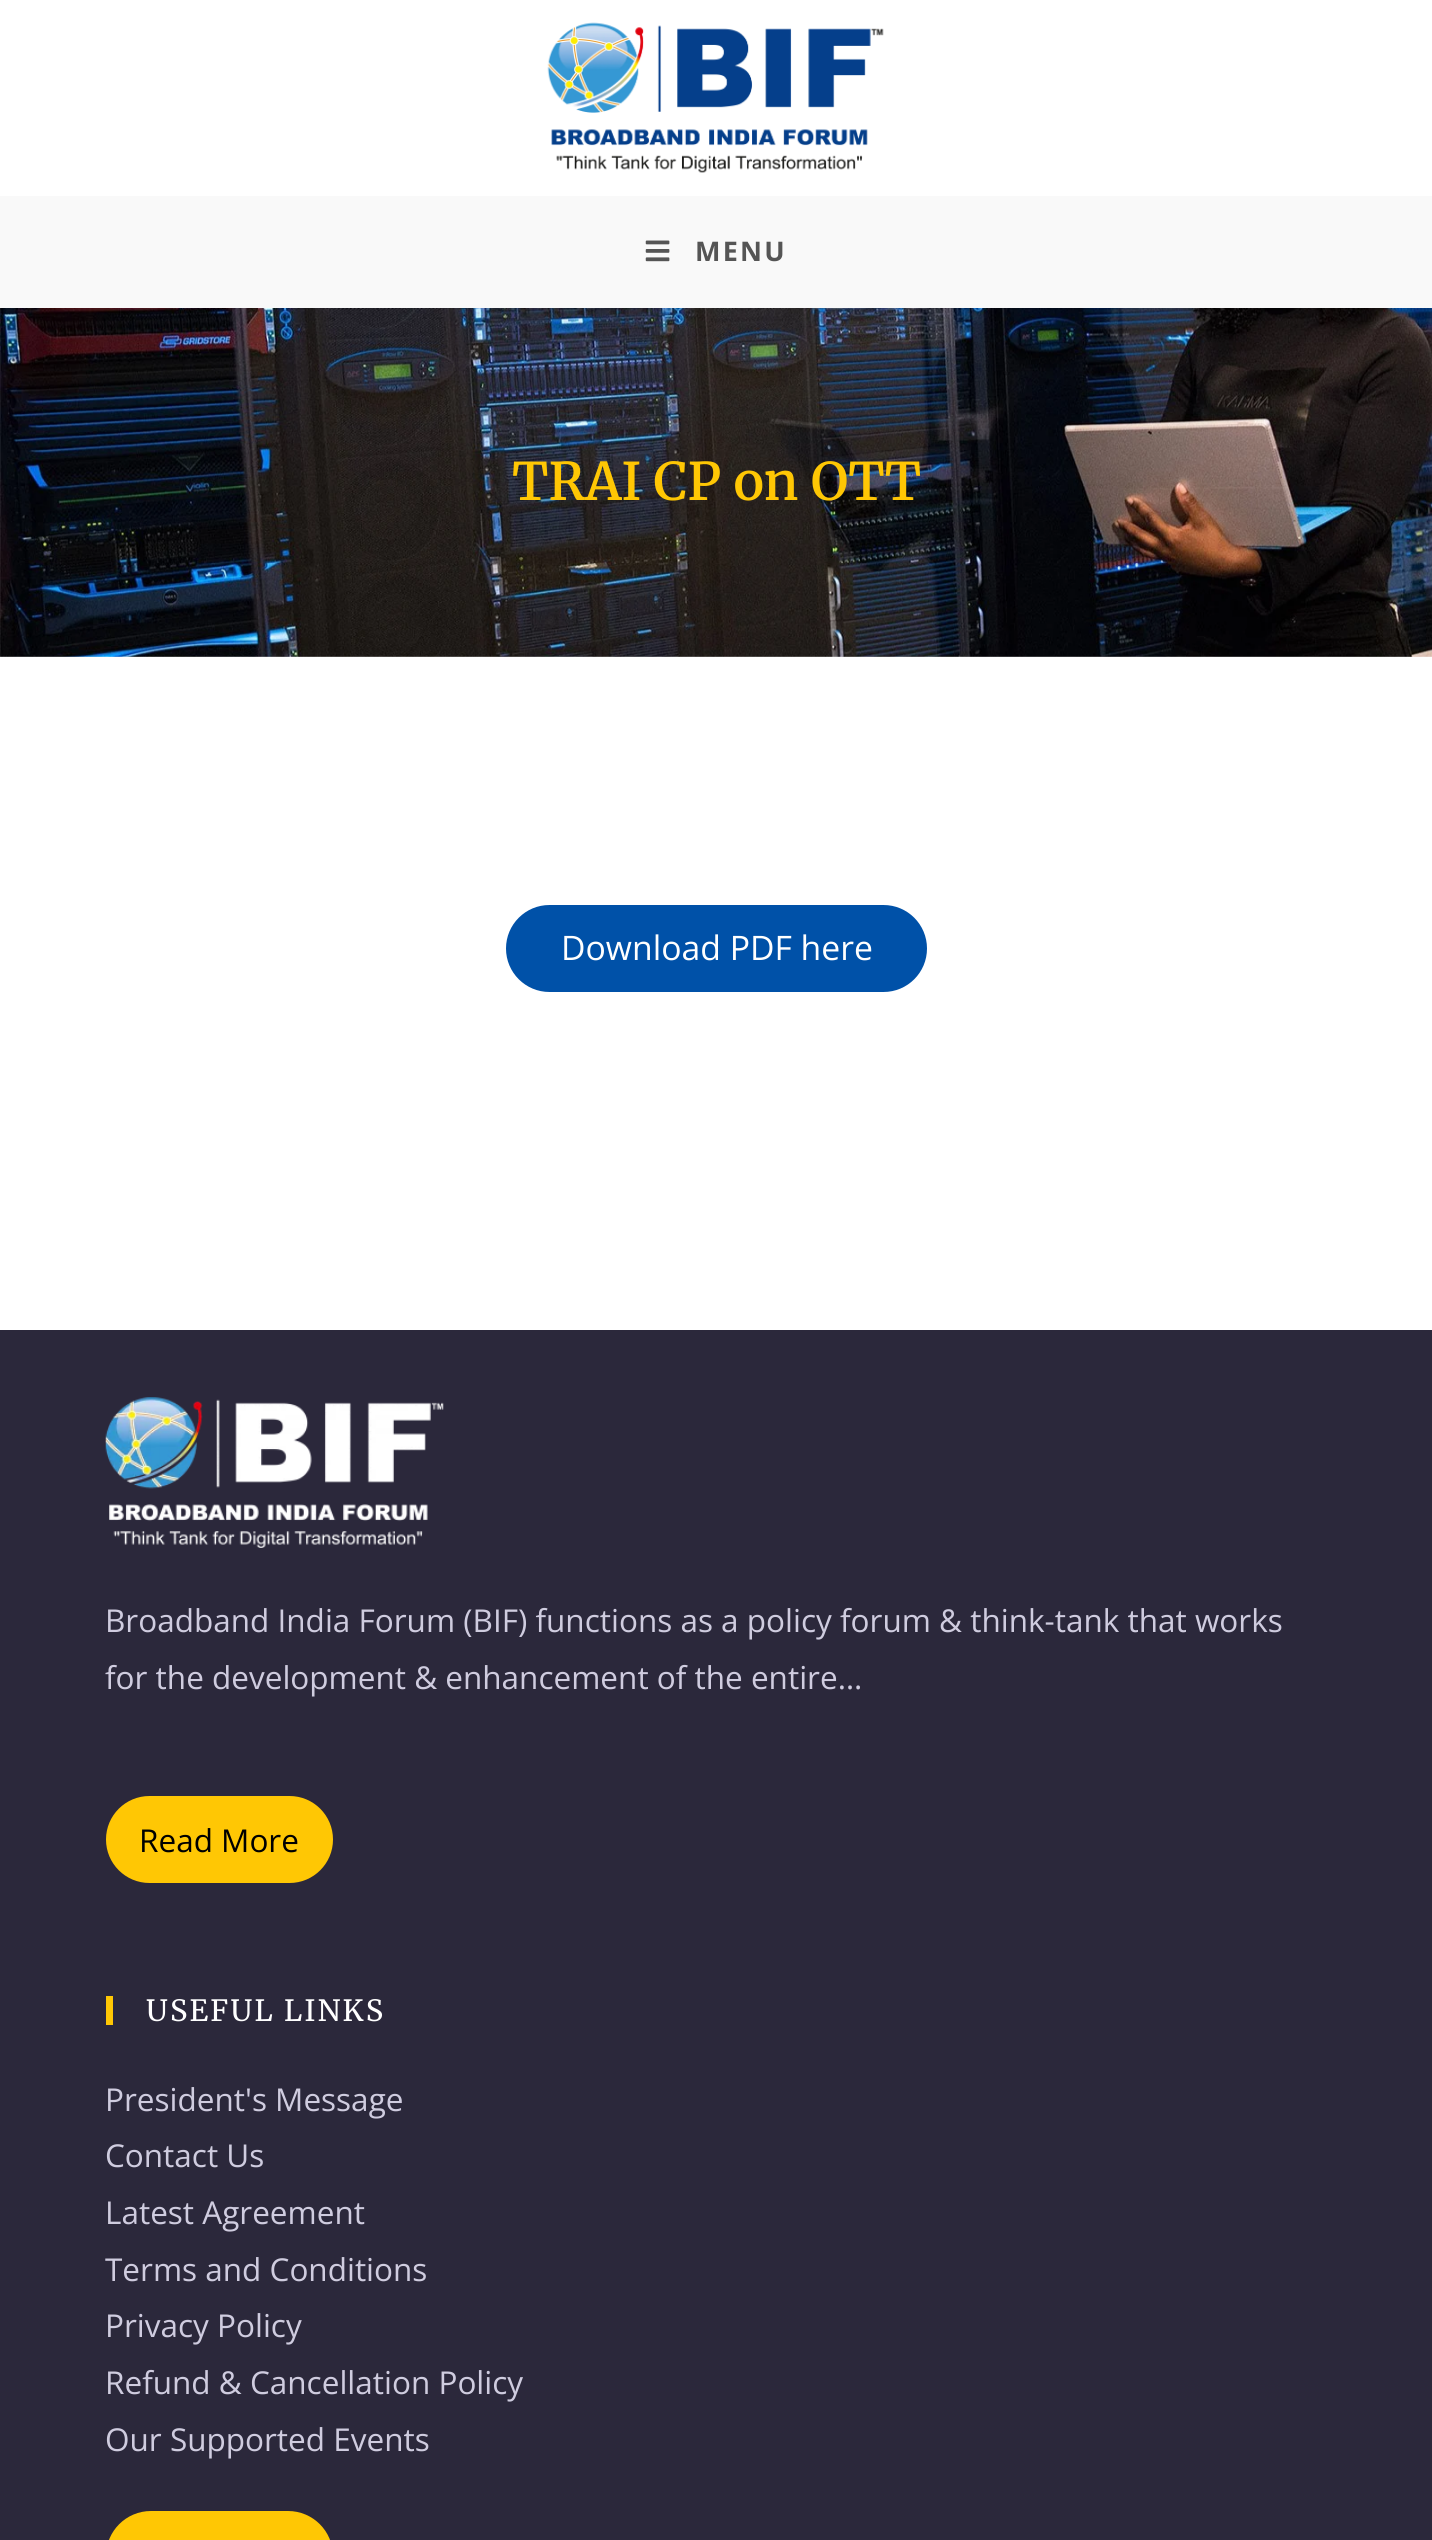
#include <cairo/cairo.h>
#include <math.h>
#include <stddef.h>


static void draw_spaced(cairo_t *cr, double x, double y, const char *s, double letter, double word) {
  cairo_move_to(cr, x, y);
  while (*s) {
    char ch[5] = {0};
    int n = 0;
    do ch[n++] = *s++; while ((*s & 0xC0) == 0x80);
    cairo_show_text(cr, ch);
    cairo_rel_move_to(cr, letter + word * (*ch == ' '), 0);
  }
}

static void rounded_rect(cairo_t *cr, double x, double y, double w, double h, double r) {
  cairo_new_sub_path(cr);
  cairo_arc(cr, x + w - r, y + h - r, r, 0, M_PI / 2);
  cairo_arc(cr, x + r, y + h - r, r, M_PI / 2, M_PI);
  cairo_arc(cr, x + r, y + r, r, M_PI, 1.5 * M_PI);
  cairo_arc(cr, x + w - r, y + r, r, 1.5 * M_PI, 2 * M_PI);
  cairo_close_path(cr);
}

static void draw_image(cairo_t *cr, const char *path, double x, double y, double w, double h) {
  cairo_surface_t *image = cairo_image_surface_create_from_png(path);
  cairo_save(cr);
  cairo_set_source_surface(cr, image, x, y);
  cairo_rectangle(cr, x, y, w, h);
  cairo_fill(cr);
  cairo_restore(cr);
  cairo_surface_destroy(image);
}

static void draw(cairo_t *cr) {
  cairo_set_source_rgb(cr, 1, 1, 1);
  cairo_paint(cr);
  draw_image(cr, "images/1.png", 547, 22, 337, 151);
  cairo_set_source_rgb(cr, 249 / 255.0, 249 / 255.0, 249 / 255.0);
  cairo_rectangle(cr, 0, 196, 1432, 112);
  cairo_fill(cr);
  draw_image(cr, "images/2.png", 645, 240, 25, 22);
  draw_image(cr, "images/3.png", 0, 308, 1432, 349);
  cairo_set_source_rgb(cr, 0, 81 / 255.0, 168 / 255.0);
  rounded_rect(cr, 506, 905, 421, 87, 43.5);
  cairo_fill(cr);
  cairo_set_source_rgb(cr, 43 / 255.0, 40 / 255.0, 59 / 255.0);
  cairo_rectangle(cr, 0, 1330, 1432, 1210);
  cairo_fill(cr);
  draw_image(cr, "images/4.png", 105, 1397, 339, 151);
  cairo_set_source_rgb(cr, 1, 199 / 255.0, 4 / 255.0);
  rounded_rect(cr, 106, 1796, 227, 87, 43.5);
  cairo_fill(cr);
  cairo_rectangle(cr, 106, 1996, 7, 29);
  cairo_fill(cr);
  rounded_rect(cr, 106, 2511, 227, 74, 45);
  cairo_fill(cr);
  cairo_select_font_face(cr, "Open Sans", CAIRO_FONT_SLANT_NORMAL, CAIRO_FONT_WEIGHT_BOLD);
  cairo_set_font_size(cr, 27);
  cairo_set_source_rgb(cr, 85 / 255.0, 85 / 255.0, 85 / 255.0);
  draw_spaced(cr, 695, 261, "MENU", 2.25, 0);
  cairo_select_font_face(cr, "Merriweather SemiBold", CAIRO_FONT_SLANT_NORMAL, CAIRO_FONT_WEIGHT_NORMAL);
  cairo_set_font_size(cr, 51.75);
  cairo_set_source_rgb(cr, 1, 199 / 255.0, 4 / 255.0);
  cairo_move_to(cr, 512, 500);
  cairo_show_text(cr, "TRAI CP on OTT");
  cairo_select_font_face(cr, "Open Sans", CAIRO_FONT_SLANT_NORMAL, CAIRO_FONT_WEIGHT_NORMAL);
  cairo_set_font_size(cr, 33.75);
  cairo_set_source_rgb(cr, 1, 1, 1);
  cairo_move_to(cr, 561, 960);
  cairo_show_text(cr, "Download PDF here");
  cairo_set_font_size(cr, 31.5);
  cairo_set_source_rgb(cr, 207 / 255.0, 204 / 255.0, 223 / 255.0);
  cairo_move_to(cr, 105, 1632);
  cairo_show_text(cr, "Broadband India Forum (BIF) functions as a policy forum & think-tank that works");
  cairo_move_to(cr, 105, 1689);
  cairo_show_text(cr, "for the development & enhancement of the entire…");
  cairo_set_source_rgb(cr, 0, 0, 0);
  cairo_move_to(cr, 139, 1852);
  cairo_show_text(cr, "Read More");
  cairo_select_font_face(cr, "Merriweather", CAIRO_FONT_SLANT_NORMAL, CAIRO_FONT_WEIGHT_NORMAL);
  cairo_set_font_size(cr, 29.25);
  cairo_set_source_rgb(cr, 1, 1, 1);
  draw_spaced(cr, 146, 2021, "USEFUL LINKS", 2.25, 0);
  cairo_select_font_face(cr, "Open Sans", CAIRO_FONT_SLANT_NORMAL, CAIRO_FONT_WEIGHT_NORMAL);
  cairo_set_font_size(cr, 31.5);
  cairo_set_source_rgb(cr, 207 / 255.0, 204 / 255.0, 223 / 255.0);
  cairo_move_to(cr, 105, 2111);
  cairo_show_text(cr, "President's Message");
  cairo_move_to(cr, 105, 2167);
  cairo_show_text(cr, "Contact Us");
  cairo_move_to(cr, 105, 2224);
  cairo_show_text(cr, "Latest Agreement");
  cairo_move_to(cr, 105, 2281);
  cairo_show_text(cr, "Terms and Conditions");
  cairo_move_to(cr, 105, 2337);
  cairo_show_text(cr, "Privacy Policy");
  cairo_move_to(cr, 105, 2394);
  cairo_show_text(cr, "Refund & Cancellation Policy");
  cairo_move_to(cr, 105, 2451);
  cairo_show_text(cr, "Our Supported Events");
}

int main(void) {
  cairo_surface_t *surface = cairo_image_surface_create(CAIRO_FORMAT_RGB24, 1432, 2540);
  cairo_t *cr = cairo_create(surface);
  cairo_font_options_t *options = cairo_font_options_create();
  cairo_font_options_set_hint_metrics(options, CAIRO_HINT_METRICS_OFF);
  cairo_font_options_set_hint_style(options, CAIRO_HINT_STYLE_NONE);
  cairo_set_font_options(cr, options);
  cairo_set_miter_limit(cr, 4);
  draw(cr);
  cairo_surface_write_to_png(surface, "out.png");
  cairo_font_options_destroy(options);
  cairo_destroy(cr);
  cairo_surface_destroy(surface);
  return 0;
}
